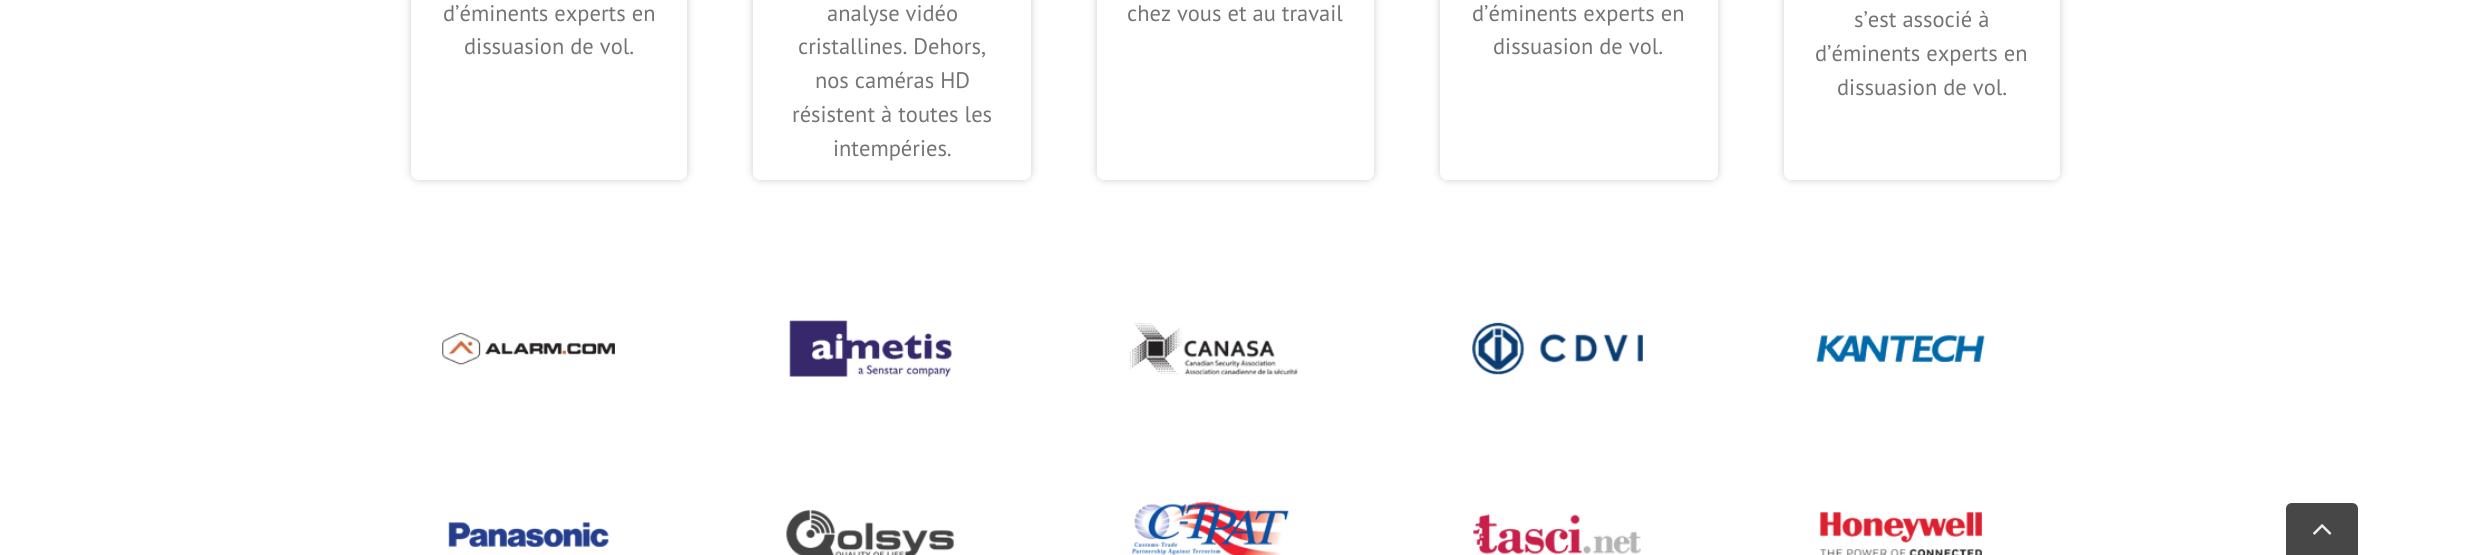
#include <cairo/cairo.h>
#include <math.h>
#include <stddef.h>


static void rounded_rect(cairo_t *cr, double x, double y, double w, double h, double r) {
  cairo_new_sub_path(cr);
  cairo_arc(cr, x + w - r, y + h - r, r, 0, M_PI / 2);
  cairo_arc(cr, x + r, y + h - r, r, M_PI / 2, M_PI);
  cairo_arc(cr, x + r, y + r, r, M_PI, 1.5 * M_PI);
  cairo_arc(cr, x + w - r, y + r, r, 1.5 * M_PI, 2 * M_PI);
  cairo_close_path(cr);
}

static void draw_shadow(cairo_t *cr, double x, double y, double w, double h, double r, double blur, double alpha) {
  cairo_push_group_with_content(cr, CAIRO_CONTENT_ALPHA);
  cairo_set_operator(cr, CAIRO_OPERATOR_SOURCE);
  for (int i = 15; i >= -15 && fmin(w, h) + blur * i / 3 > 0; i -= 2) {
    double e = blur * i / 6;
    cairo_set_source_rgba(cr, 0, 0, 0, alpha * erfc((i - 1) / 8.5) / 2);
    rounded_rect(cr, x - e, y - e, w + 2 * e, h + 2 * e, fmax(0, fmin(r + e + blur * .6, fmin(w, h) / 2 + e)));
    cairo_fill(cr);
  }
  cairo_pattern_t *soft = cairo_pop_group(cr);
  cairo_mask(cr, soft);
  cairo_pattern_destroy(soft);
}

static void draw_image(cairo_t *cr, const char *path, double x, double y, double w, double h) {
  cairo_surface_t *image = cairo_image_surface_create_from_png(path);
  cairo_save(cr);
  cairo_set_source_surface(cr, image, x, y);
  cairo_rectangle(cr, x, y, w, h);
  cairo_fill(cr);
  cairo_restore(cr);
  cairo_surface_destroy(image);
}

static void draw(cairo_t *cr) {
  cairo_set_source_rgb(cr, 1, 1, 1);
  cairo_paint(cr);
  cairo_save(cr);
  cairo_set_fill_rule(cr, CAIRO_FILL_RULE_EVEN_ODD);
  cairo_new_path(cr);
  cairo_move_to(cr, 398, 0);
  cairo_line_to(cr, 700, 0);
  cairo_line_to(cr, 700, 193);
  cairo_line_to(cr, 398, 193);
  cairo_close_path(cr);
  cairo_move_to(cr, 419, -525);
  cairo_line_to(cr, 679, -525);
  cairo_curve_to(cr, 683.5, -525, 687, -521.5, 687, -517);
  cairo_line_to(cr, 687, 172);
  cairo_curve_to(cr, 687, 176.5, 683.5, 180, 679, 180);
  cairo_line_to(cr, 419, 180);
  cairo_curve_to(cr, 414.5, 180, 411, 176.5, 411, 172);
  cairo_line_to(cr, 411, -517);
  cairo_curve_to(cr, 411, -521.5, 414.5, -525, 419, -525);
  cairo_close_path(cr);
  cairo_clip(cr);
  cairo_set_source_rgb(cr, 0, 0, 0);
  draw_shadow(cr, 411, -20, 276, 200, 8, 4, 0.2);
  cairo_restore(cr);
  cairo_save(cr);
  cairo_set_fill_rule(cr, CAIRO_FILL_RULE_EVEN_ODD);
  cairo_new_path(cr);
  cairo_move_to(cr, 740, 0);
  cairo_line_to(cr, 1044, 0);
  cairo_line_to(cr, 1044, 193);
  cairo_line_to(cr, 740, 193);
  cairo_close_path(cr);
  cairo_move_to(cr, 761, -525);
  cairo_line_to(cr, 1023, -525);
  cairo_curve_to(cr, 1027.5, -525, 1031, -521.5, 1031, -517);
  cairo_line_to(cr, 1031, 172);
  cairo_curve_to(cr, 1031, 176.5, 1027.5, 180, 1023, 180);
  cairo_line_to(cr, 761, 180);
  cairo_curve_to(cr, 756.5, 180, 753, 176.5, 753, 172);
  cairo_line_to(cr, 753, -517);
  cairo_curve_to(cr, 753, -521.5, 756.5, -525, 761, -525);
  cairo_close_path(cr);
  cairo_clip(cr);
  cairo_set_source_rgb(cr, 0, 0, 0);
  draw_shadow(cr, 753, -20, 278, 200, 8, 4, 0.2);
  cairo_restore(cr);
  cairo_save(cr);
  cairo_set_fill_rule(cr, CAIRO_FILL_RULE_EVEN_ODD);
  cairo_new_path(cr);
  cairo_move_to(cr, 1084, 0);
  cairo_line_to(cr, 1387, 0);
  cairo_line_to(cr, 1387, 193);
  cairo_line_to(cr, 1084, 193);
  cairo_close_path(cr);
  cairo_move_to(cr, 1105, -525);
  cairo_line_to(cr, 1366, -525);
  cairo_curve_to(cr, 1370.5, -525, 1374, -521.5, 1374, -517);
  cairo_line_to(cr, 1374, 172);
  cairo_curve_to(cr, 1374, 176.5, 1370.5, 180, 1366, 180);
  cairo_line_to(cr, 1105, 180);
  cairo_curve_to(cr, 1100.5, 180, 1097, 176.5, 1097, 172);
  cairo_line_to(cr, 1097, -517);
  cairo_curve_to(cr, 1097, -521.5, 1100.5, -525, 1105, -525);
  cairo_close_path(cr);
  cairo_clip(cr);
  cairo_set_source_rgb(cr, 0, 0, 0);
  draw_shadow(cr, 1097, -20, 277, 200, 8, 4, 0.2);
  cairo_restore(cr);
  cairo_save(cr);
  cairo_set_fill_rule(cr, CAIRO_FILL_RULE_EVEN_ODD);
  cairo_new_path(cr);
  cairo_move_to(cr, 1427, 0);
  cairo_line_to(cr, 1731, 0);
  cairo_line_to(cr, 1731, 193);
  cairo_line_to(cr, 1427, 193);
  cairo_close_path(cr);
  cairo_move_to(cr, 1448, -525);
  cairo_line_to(cr, 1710, -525);
  cairo_curve_to(cr, 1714.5, -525, 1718, -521.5, 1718, -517);
  cairo_line_to(cr, 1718, 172);
  cairo_curve_to(cr, 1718, 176.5, 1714.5, 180, 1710, 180);
  cairo_line_to(cr, 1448, 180);
  cairo_curve_to(cr, 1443.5, 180, 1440, 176.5, 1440, 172);
  cairo_line_to(cr, 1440, -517);
  cairo_curve_to(cr, 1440, -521.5, 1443.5, -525, 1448, -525);
  cairo_close_path(cr);
  cairo_clip(cr);
  cairo_set_source_rgb(cr, 0, 0, 0);
  draw_shadow(cr, 1440, -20, 278, 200, 8, 4, 0.2);
  cairo_restore(cr);
  cairo_save(cr);
  cairo_set_fill_rule(cr, CAIRO_FILL_RULE_EVEN_ODD);
  cairo_new_path(cr);
  cairo_move_to(cr, 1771, 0);
  cairo_line_to(cr, 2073, 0);
  cairo_line_to(cr, 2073, 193);
  cairo_line_to(cr, 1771, 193);
  cairo_close_path(cr);
  cairo_move_to(cr, 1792, -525);
  cairo_line_to(cr, 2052, -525);
  cairo_curve_to(cr, 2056.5, -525, 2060, -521.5, 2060, -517);
  cairo_line_to(cr, 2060, 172);
  cairo_curve_to(cr, 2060, 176.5, 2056.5, 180, 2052, 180);
  cairo_line_to(cr, 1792, 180);
  cairo_curve_to(cr, 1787.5, 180, 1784, 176.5, 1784, 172);
  cairo_line_to(cr, 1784, -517);
  cairo_curve_to(cr, 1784, -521.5, 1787.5, -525, 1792, -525);
  cairo_close_path(cr);
  cairo_clip(cr);
  cairo_set_source_rgb(cr, 0, 0, 0);
  draw_shadow(cr, 1784, -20, 276, 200, 8, 4, 0.2);
  cairo_restore(cr);
  draw_image(cr, "images/1.png", 442, 332, 173, 33);
  draw_image(cr, "images/2.png", 448, 522, 161, 25);
  draw_image(cr, "images/3.png", 789, 320, 163, 57);
  draw_image(cr, "images/4.png", 786, 510, 168, 45);
  draw_image(cr, "images/5.png", 1129, 323, 169, 52);
  draw_image(cr, "images/6.png", 1132, 502, 157, 53);
  draw_image(cr, "images/7.png", 1472, 322, 171, 53);
  draw_image(cr, "images/8.png", 1473, 514, 168, 40);
  draw_image(cr, "images/9.png", 1816, 335, 169, 27);
  draw_image(cr, "images/10.png", 1820, 512, 162, 43);
  cairo_set_source_rgb(cr, 71 / 255.0, 71 / 255.0, 71 / 255.0);
  cairo_new_path(cr);
  cairo_move_to(cr, 2292, 503);
  cairo_line_to(cr, 2352, 503);
  cairo_curve_to(cr, 2355.5, 503, 2358, 505.5, 2358, 509);
  cairo_line_to(cr, 2358, 555);
  cairo_line_to(cr, 2286, 555);
  cairo_line_to(cr, 2286, 509);
  cairo_curve_to(cr, 2286, 505.5, 2288.5, 503, 2292, 503);
  cairo_close_path(cr);
  cairo_fill(cr);
  draw_image(cr, "images/11.png", 2313, 524, 19, 11);
  cairo_select_font_face(cr, "PT Sans", CAIRO_FONT_SLANT_NORMAL, CAIRO_FONT_WEIGHT_NORMAL);
  cairo_set_font_size(cr, 22.5);
  cairo_set_source_rgb(cr, 116 / 255.0, 116 / 255.0, 116 / 255.0);
  cairo_move_to(cr, 443, 21);
  cairo_show_text(cr, "d’éminents experts en");
  cairo_move_to(cr, 464, 54);
  cairo_show_text(cr, "dissuasion de vol.");
  cairo_move_to(cr, 827, 21);
  cairo_show_text(cr, "analyse vidéo");
  cairo_move_to(cr, 798, 54);
  cairo_show_text(cr, "cristallines. Dehors,");
  cairo_move_to(cr, 815, 88);
  cairo_show_text(cr, "nos caméras HD");
  cairo_move_to(cr, 792, 122);
  cairo_show_text(cr, "résistent à toutes les");
  cairo_move_to(cr, 833, 156);
  cairo_show_text(cr, "intempéries.");
  cairo_move_to(cr, 1127, 21);
  cairo_show_text(cr, "chez vous et au travail");
  cairo_move_to(cr, 1472, 21);
  cairo_show_text(cr, "d’éminents experts en");
  cairo_move_to(cr, 1493, 54);
  cairo_show_text(cr, "dissuasion de vol.");
  cairo_move_to(cr, 1854, 27);
  cairo_show_text(cr, "s’est associé à");
  cairo_move_to(cr, 1815, 61);
  cairo_show_text(cr, "d’éminents experts en");
  cairo_move_to(cr, 1837, 95);
  cairo_show_text(cr, "dissuasion de vol.");
}

int main(void) {
  cairo_surface_t *surface = cairo_image_surface_create(CAIRO_FORMAT_RGB24, 2470, 555);
  cairo_t *cr = cairo_create(surface);
  cairo_font_options_t *options = cairo_font_options_create();
  cairo_font_options_set_hint_metrics(options, CAIRO_HINT_METRICS_OFF);
  cairo_font_options_set_hint_style(options, CAIRO_HINT_STYLE_NONE);
  cairo_set_font_options(cr, options);
  cairo_set_miter_limit(cr, 4);
  draw(cr);
  cairo_surface_write_to_png(surface, "out.png");
  cairo_font_options_destroy(options);
  cairo_destroy(cr);
  cairo_surface_destroy(surface);
  return 0;
}
